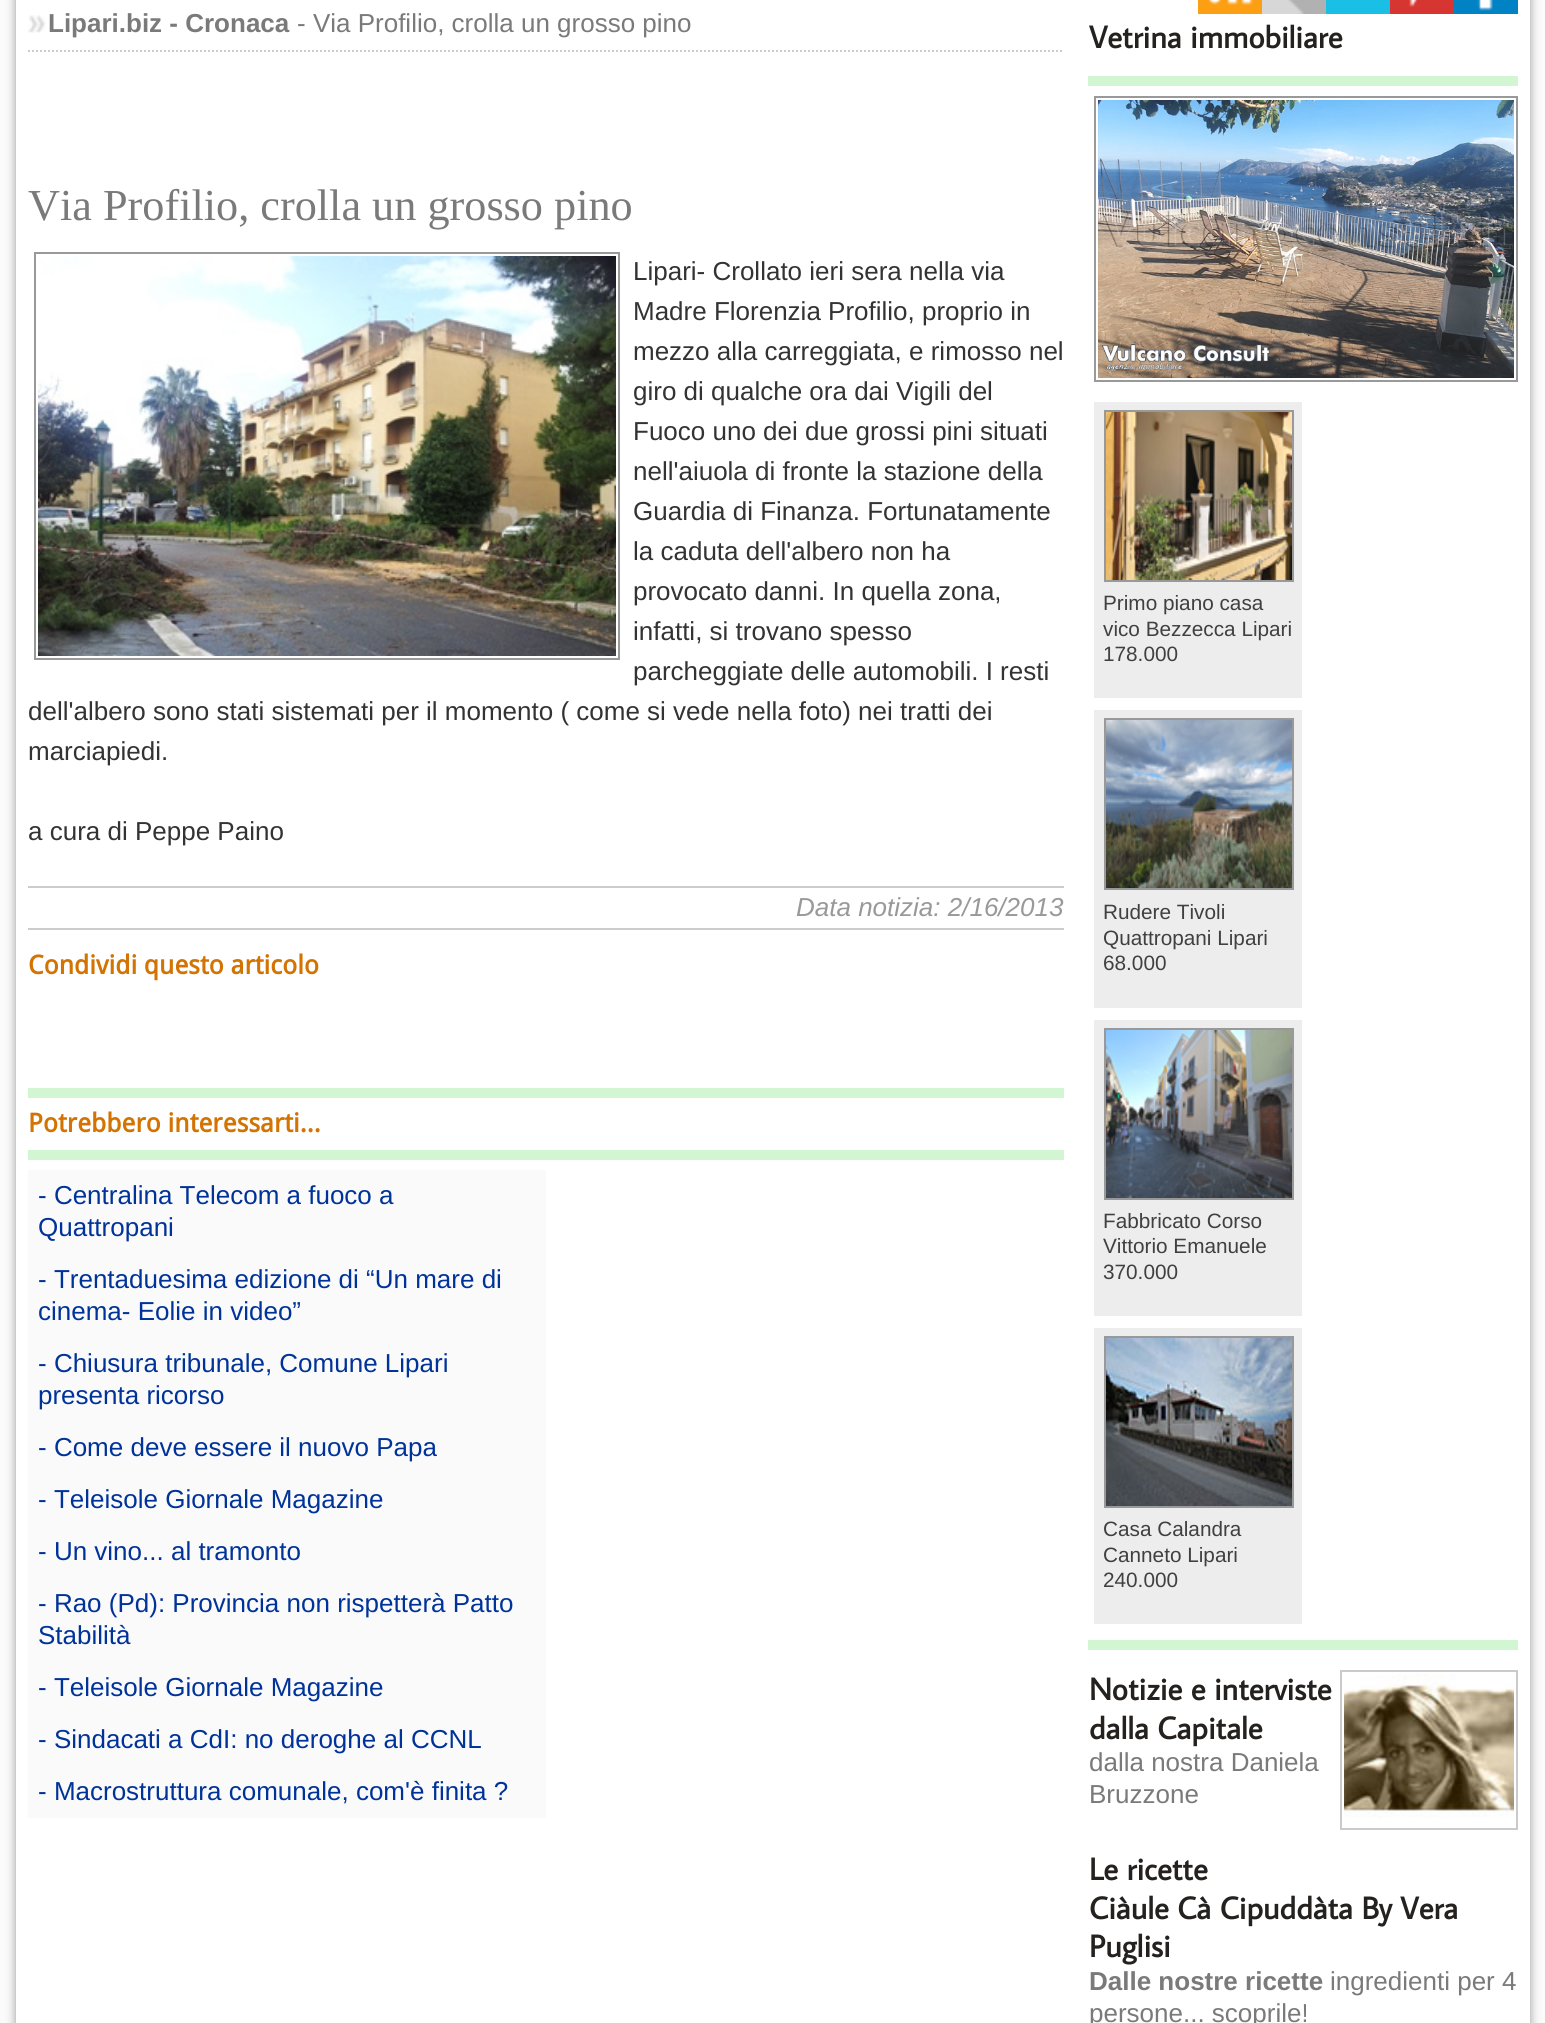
#include <cairo/cairo.h>
#include <math.h>
#include <stddef.h>


static void rounded_rect(cairo_t *cr, double x, double y, double w, double h, double r) {
  cairo_new_sub_path(cr);
  cairo_arc(cr, x + w - r, y + h - r, r, 0, M_PI / 2);
  cairo_arc(cr, x + r, y + h - r, r, M_PI / 2, M_PI);
  cairo_arc(cr, x + r, y + r, r, M_PI, 1.5 * M_PI);
  cairo_arc(cr, x + w - r, y + r, r, 1.5 * M_PI, 2 * M_PI);
  cairo_close_path(cr);
}

static void draw_shadow(cairo_t *cr, double x, double y, double w, double h, double r, double blur, double alpha) {
  cairo_push_group_with_content(cr, CAIRO_CONTENT_ALPHA);
  cairo_set_operator(cr, CAIRO_OPERATOR_SOURCE);
  for (int i = 15; i >= -15 && fmin(w, h) + blur * i / 3 > 0; i -= 2) {
    double e = blur * i / 6;
    cairo_set_source_rgba(cr, 0, 0, 0, alpha * erfc((i - 1) / 8.5) / 2);
    rounded_rect(cr, x - e, y - e, w + 2 * e, h + 2 * e, fmax(0, fmin(r + e + blur * .6, fmin(w, h) / 2 + e)));
    cairo_fill(cr);
  }
  cairo_pattern_t *soft = cairo_pop_group(cr);
  cairo_mask(cr, soft);
  cairo_pattern_destroy(soft);
}

static void draw_image(cairo_t *cr, const char *path, double x, double y, double w, double h) {
  cairo_surface_t *image = cairo_image_surface_create_from_png(path);
  cairo_save(cr);
  cairo_set_source_surface(cr, image, x, y);
  cairo_rectangle(cr, x, y, w, h);
  cairo_fill(cr);
  cairo_restore(cr);
  cairo_surface_destroy(image);
}

static void draw(cairo_t *cr) {
  cairo_set_source_rgb(cr, 251 / 255.0, 251 / 255.0, 251 / 255.0);
  cairo_paint(cr);
  cairo_set_source_rgb(cr, 153 / 255.0, 153 / 255.0, 153 / 255.0);
  draw_shadow(cr, 16, -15, 1514, 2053, 0, 5, 1);
  cairo_set_source_rgb(cr, 1, 1, 1);
  cairo_rectangle(cr, 16, 0, 1514, 2023);
  cairo_fill(cr);
  draw_image(cr, "images/1.png", 1198, 0, 64, 14);
  draw_image(cr, "images/2.png", 1262, 0, 64, 14);
  cairo_set_source_rgb(cr, 25 / 255.0, 191 / 255.0, 229 / 255.0);
  cairo_rectangle(cr, 1326, 0, 64, 14);
  cairo_fill(cr);
  draw_image(cr, "images/3.png", 1390, 0, 64, 14);
  draw_image(cr, "images/4.png", 1454, 0, 64, 14);
  draw_image(cr, "images/5.png", 28, 15, 18, 18);
  cairo_new_path(cr);
  cairo_move_to(cr, 28, 51);
  cairo_line_to(cr, 1064, 51);
  cairo_set_source_rgb(cr, 204 / 255.0, 204 / 255.0, 204 / 255.0);
  cairo_set_dash(cr, (double[]){2, 2}, 2, 0);
  cairo_stroke(cr);
  cairo_rectangle(cr, 35, 253, 584, 406);
  cairo_set_source_rgb(cr, 153 / 255.0, 153 / 255.0, 153 / 255.0);
  cairo_set_dash(cr, NULL, 0, 0);
  cairo_stroke(cr);
  draw_image(cr, "images/6.png", 38, 256, 578, 400);
  cairo_set_source_rgb(cr, 204 / 255.0, 204 / 255.0, 204 / 255.0);
  cairo_rectangle(cr, 28, 886, 1036, 2);
  cairo_fill(cr);
  cairo_rectangle(cr, 28, 928, 1036, 2);
  cairo_fill(cr);
  cairo_set_source_rgb(cr, 209 / 255.0, 246 / 255.0, 209 / 255.0);
  cairo_rectangle(cr, 28, 1088, 1036, 10);
  cairo_fill(cr);
  cairo_rectangle(cr, 28, 1150, 1036, 10);
  cairo_fill(cr);
  cairo_set_source_rgb(cr, 250 / 255.0, 250 / 255.0, 250 / 255.0);
  cairo_rectangle(cr, 28, 1170, 518, 648);
  cairo_fill(cr);
  cairo_set_source_rgb(cr, 209 / 255.0, 246 / 255.0, 209 / 255.0);
  cairo_rectangle(cr, 1088, 76, 430, 10);
  cairo_fill(cr);
  cairo_rectangle(cr, 1095, 97, 422, 284);
  cairo_set_source_rgb(cr, 153 / 255.0, 153 / 255.0, 153 / 255.0);
  cairo_stroke(cr);
  draw_image(cr, "images/7.png", 1098, 100, 416, 278);
  cairo_set_source_rgb(cr, 236 / 255.0, 237 / 255.0, 236 / 255.0);
  cairo_rectangle(cr, 1094, 402, 208, 296);
  cairo_fill(cr);
  cairo_rectangle(cr, 1105, 411, 188, 170);
  cairo_set_source_rgb(cr, 153 / 255.0, 153 / 255.0, 153 / 255.0);
  cairo_stroke(cr);
  draw_image(cr, "images/8.png", 1106, 412, 186, 168);
  cairo_set_source_rgb(cr, 236 / 255.0, 237 / 255.0, 236 / 255.0);
  cairo_rectangle(cr, 1094, 710, 208, 298);
  cairo_fill(cr);
  cairo_rectangle(cr, 1105, 719, 188, 170);
  cairo_set_source_rgb(cr, 153 / 255.0, 153 / 255.0, 153 / 255.0);
  cairo_stroke(cr);
  draw_image(cr, "images/9.png", 1106, 720, 186, 168);
  cairo_set_source_rgb(cr, 236 / 255.0, 237 / 255.0, 236 / 255.0);
  cairo_rectangle(cr, 1094, 1020, 208, 296);
  cairo_fill(cr);
  cairo_rectangle(cr, 1105, 1029, 188, 170);
  cairo_set_source_rgb(cr, 153 / 255.0, 153 / 255.0, 153 / 255.0);
  cairo_stroke(cr);
  draw_image(cr, "images/10.png", 1106, 1030, 186, 168);
  cairo_set_source_rgb(cr, 236 / 255.0, 237 / 255.0, 236 / 255.0);
  cairo_rectangle(cr, 1094, 1328, 208, 296);
  cairo_fill(cr);
  cairo_rectangle(cr, 1105, 1337, 188, 170);
  cairo_set_source_rgb(cr, 153 / 255.0, 153 / 255.0, 153 / 255.0);
  cairo_stroke(cr);
  draw_image(cr, "images/11.png", 1106, 1338, 186, 168);
  cairo_set_source_rgb(cr, 209 / 255.0, 246 / 255.0, 209 / 255.0);
  cairo_rectangle(cr, 1088, 1640, 430, 10);
  cairo_fill(cr);
  cairo_rectangle(cr, 1341, 1671, 176, 158);
  cairo_set_source_rgb(cr, 202 / 255.0, 202 / 255.0, 202 / 255.0);
  cairo_stroke(cr);
  draw_image(cr, "images/12.png", 1344, 1674, 170, 144);
  cairo_select_font_face(cr, "Liberation Sans", CAIRO_FONT_SLANT_NORMAL, CAIRO_FONT_WEIGHT_BOLD);
  cairo_set_font_size(cr, 26);
  cairo_set_source_rgb(cr, 122 / 255.0, 122 / 255.0, 122 / 255.0);
  cairo_move_to(cr, 48, 32);
  cairo_show_text(cr, "Lipari.biz - Cronaca");
  cairo_select_font_face(cr, "Liberation Sans", CAIRO_FONT_SLANT_NORMAL, CAIRO_FONT_WEIGHT_NORMAL);
  cairo_move_to(cr, 297, 32);
  cairo_show_text(cr, "- Via Profilio, crolla un grosso pino");
  cairo_select_font_face(cr, "Liberation Serif", CAIRO_FONT_SLANT_NORMAL, CAIRO_FONT_WEIGHT_NORMAL);
  cairo_set_font_size(cr, 44.25);
  cairo_move_to(cr, 28, 220);
  cairo_show_text(cr, "Via Profilio, crolla un grosso pino");
  cairo_select_font_face(cr, "Liberation Sans", CAIRO_FONT_SLANT_NORMAL, CAIRO_FONT_WEIGHT_NORMAL);
  cairo_set_font_size(cr, 26);
  cairo_set_source_rgb(cr, 51 / 255.0, 51 / 255.0, 51 / 255.0);
  cairo_move_to(cr, 633, 280);
  cairo_show_text(cr, "Lipari- Crollato ieri sera nella via");
  cairo_move_to(cr, 633, 320);
  cairo_show_text(cr, "Madre Florenzia Profilio, proprio in");
  cairo_move_to(cr, 633, 360);
  cairo_show_text(cr, "mezzo alla carreggiata, e rimosso nel");
  cairo_move_to(cr, 633, 400);
  cairo_show_text(cr, "giro di qualche ora dai Vigili del");
  cairo_move_to(cr, 633, 440);
  cairo_show_text(cr, "Fuoco uno dei due grossi pini situati");
  cairo_move_to(cr, 633, 480);
  cairo_show_text(cr, "nell'aiuola di fronte la stazione della");
  cairo_move_to(cr, 633, 520);
  cairo_show_text(cr, "Guardia di Finanza. Fortunatamente");
  cairo_move_to(cr, 633, 560);
  cairo_show_text(cr, "la caduta dell'albero non ha");
  cairo_move_to(cr, 633, 600);
  cairo_show_text(cr, "provocato danni. In quella zona,");
  cairo_move_to(cr, 633, 640);
  cairo_show_text(cr, "infatti, si trovano spesso");
  cairo_move_to(cr, 633, 680);
  cairo_show_text(cr, "parcheggiate delle automobili. I resti");
  cairo_move_to(cr, 28, 720);
  cairo_show_text(cr, "dell'albero sono stati sistemati per il momento ( come si vede nella foto) nei tratti dei");
  cairo_move_to(cr, 28, 760);
  cairo_show_text(cr, "marciapiedi.");
  cairo_move_to(cr, 28, 840);
  cairo_show_text(cr, "a cura di Peppe Paino");
  cairo_select_font_face(cr, "Liberation Sans", CAIRO_FONT_SLANT_ITALIC, CAIRO_FONT_WEIGHT_NORMAL);
  cairo_set_source_rgb(cr, 153 / 255.0, 153 / 255.0, 153 / 255.0);
  cairo_move_to(cr, 796, 916);
  cairo_show_text(cr, "Data notizia: 2/16/2013");
  cairo_select_font_face(cr, "Droid Sans", CAIRO_FONT_SLANT_NORMAL, CAIRO_FONT_WEIGHT_BOLD);
  cairo_set_source_rgb(cr, 211 / 255.0, 115 / 255.0, 2 / 255.0);
  cairo_move_to(cr, 28, 974);
  cairo_show_text(cr, "Condividi questo articolo");
  cairo_move_to(cr, 28, 1132);
  cairo_show_text(cr, "Potrebbero interessarti...");
  cairo_select_font_face(cr, "Liberation Sans", CAIRO_FONT_SLANT_NORMAL, CAIRO_FONT_WEIGHT_NORMAL);
  cairo_set_source_rgb(cr, 0, 51 / 255.0, 153 / 255.0);
  cairo_move_to(cr, 38, 1204);
  cairo_show_text(cr, "- Centralina Telecom a fuoco a");
  cairo_move_to(cr, 38, 1236);
  cairo_show_text(cr, "Quattropani");
  cairo_move_to(cr, 38, 1288);
  cairo_show_text(cr, "- Trentaduesima edizione di “Un mare di");
  cairo_move_to(cr, 38, 1320);
  cairo_show_text(cr, "cinema- Eolie in video”");
  cairo_move_to(cr, 38, 1372);
  cairo_show_text(cr, "- Chiusura tribunale, Comune Lipari");
  cairo_move_to(cr, 38, 1404);
  cairo_show_text(cr, "presenta ricorso");
  cairo_move_to(cr, 38, 1456);
  cairo_show_text(cr, "- Come deve essere il nuovo Papa");
  cairo_move_to(cr, 38, 1508);
  cairo_show_text(cr, "- Teleisole Giornale Magazine");
  cairo_move_to(cr, 38, 1560);
  cairo_show_text(cr, "- Un vino... al tramonto");
  cairo_move_to(cr, 38, 1612);
  cairo_show_text(cr, "- Rao (Pd): Provincia non rispetterà Patto");
  cairo_move_to(cr, 38, 1644);
  cairo_show_text(cr, "Stabilità");
  cairo_move_to(cr, 38, 1696);
  cairo_show_text(cr, "- Teleisole Giornale Magazine");
  cairo_move_to(cr, 38, 1748);
  cairo_show_text(cr, "- Sindacati a CdI: no deroghe al CCNL");
  cairo_move_to(cr, 38, 1800);
  cairo_show_text(cr, "- Macrostruttura comunale, com'è finita ?");
  cairo_select_font_face(cr, "Average Sans", CAIRO_FONT_SLANT_NORMAL, CAIRO_FONT_WEIGHT_BOLD);
  cairo_set_font_size(cr, 31.25);
  cairo_set_source_rgb(cr, 36 / 255.0, 33 / 255.0, 30 / 255.0);
  cairo_move_to(cr, 1089, 48);
  cairo_show_text(cr, "Vetrina immobiliare");
  cairo_select_font_face(cr, "Liberation Sans", CAIRO_FONT_SLANT_NORMAL, CAIRO_FONT_WEIGHT_NORMAL);
  cairo_set_font_size(cr, 20.75);
  cairo_set_source_rgb(cr, 64 / 255.0, 64 / 255.0, 64 / 255.0);
  cairo_move_to(cr, 1103, 610);
  cairo_show_text(cr, "Primo piano casa");
  cairo_move_to(cr, 1103, 636);
  cairo_show_text(cr, "vico Bezzecca Lipari");
  cairo_move_to(cr, 1103, 661);
  cairo_show_text(cr, "178.000");
  cairo_move_to(cr, 1103, 919);
  cairo_show_text(cr, "Rudere Tivoli");
  cairo_move_to(cr, 1103, 945);
  cairo_show_text(cr, "Quattropani Lipari");
  cairo_move_to(cr, 1103, 970);
  cairo_show_text(cr, "68.000");
  cairo_move_to(cr, 1103, 1228);
  cairo_show_text(cr, "Fabbricato Corso");
  cairo_move_to(cr, 1103, 1253);
  cairo_show_text(cr, "Vittorio Emanuele");
  cairo_move_to(cr, 1103, 1279);
  cairo_show_text(cr, "370.000");
  cairo_move_to(cr, 1103, 1536);
  cairo_show_text(cr, "Casa Calandra");
  cairo_move_to(cr, 1103, 1562);
  cairo_show_text(cr, "Canneto Lipari");
  cairo_move_to(cr, 1103, 1587);
  cairo_show_text(cr, "240.000");
  cairo_select_font_face(cr, "Average Sans", CAIRO_FONT_SLANT_NORMAL, CAIRO_FONT_WEIGHT_BOLD);
  cairo_set_font_size(cr, 31.25);
  cairo_set_source_rgb(cr, 36 / 255.0, 33 / 255.0, 30 / 255.0);
  cairo_move_to(cr, 1089, 1700);
  cairo_show_text(cr, "Notizie e interviste");
  cairo_move_to(cr, 1089, 1739);
  cairo_show_text(cr, "dalla Capitale");
  cairo_select_font_face(cr, "Liberation Sans", CAIRO_FONT_SLANT_NORMAL, CAIRO_FONT_WEIGHT_NORMAL);
  cairo_set_font_size(cr, 26);
  cairo_set_source_rgb(cr, 122 / 255.0, 122 / 255.0, 122 / 255.0);
  cairo_move_to(cr, 1089, 1771);
  cairo_show_text(cr, "dalla nostra Daniela");
  cairo_move_to(cr, 1089, 1803);
  cairo_show_text(cr, "Bruzzone");
  cairo_select_font_face(cr, "Average Sans", CAIRO_FONT_SLANT_NORMAL, CAIRO_FONT_WEIGHT_BOLD);
  cairo_set_font_size(cr, 31.25);
  cairo_set_source_rgb(cr, 36 / 255.0, 33 / 255.0, 30 / 255.0);
  cairo_move_to(cr, 1089, 1880);
  cairo_show_text(cr, "Le ricette");
  cairo_move_to(cr, 1089, 1919);
  cairo_show_text(cr, "Ciàule Cà Cipuddàta By Vera");
  cairo_move_to(cr, 1089, 1957);
  cairo_show_text(cr, "Puglisi");
  cairo_select_font_face(cr, "Liberation Sans", CAIRO_FONT_SLANT_NORMAL, CAIRO_FONT_WEIGHT_BOLD);
  cairo_set_font_size(cr, 26);
  cairo_set_source_rgb(cr, 122 / 255.0, 122 / 255.0, 122 / 255.0);
  cairo_move_to(cr, 1089, 1990);
  cairo_show_text(cr, "Dalle nostre ricette");
  cairo_select_font_face(cr, "Liberation Sans", CAIRO_FONT_SLANT_NORMAL, CAIRO_FONT_WEIGHT_NORMAL);
  cairo_move_to(cr, 1330, 1990);
  cairo_show_text(cr, "ingredienti per 4");
  cairo_move_to(cr, 1089, 2022);
  cairo_show_text(cr, "persone... scoprile!");
}

int main(void) {
  cairo_surface_t *surface = cairo_image_surface_create(CAIRO_FORMAT_RGB24, 1545, 2023);
  cairo_t *cr = cairo_create(surface);
  cairo_font_options_t *options = cairo_font_options_create();
  cairo_font_options_set_hint_metrics(options, CAIRO_HINT_METRICS_OFF);
  cairo_font_options_set_hint_style(options, CAIRO_HINT_STYLE_NONE);
  cairo_set_font_options(cr, options);
  cairo_set_miter_limit(cr, 4);
  draw(cr);
  cairo_surface_write_to_png(surface, "out.png");
  cairo_font_options_destroy(options);
  cairo_destroy(cr);
  cairo_surface_destroy(surface);
  return 0;
}
